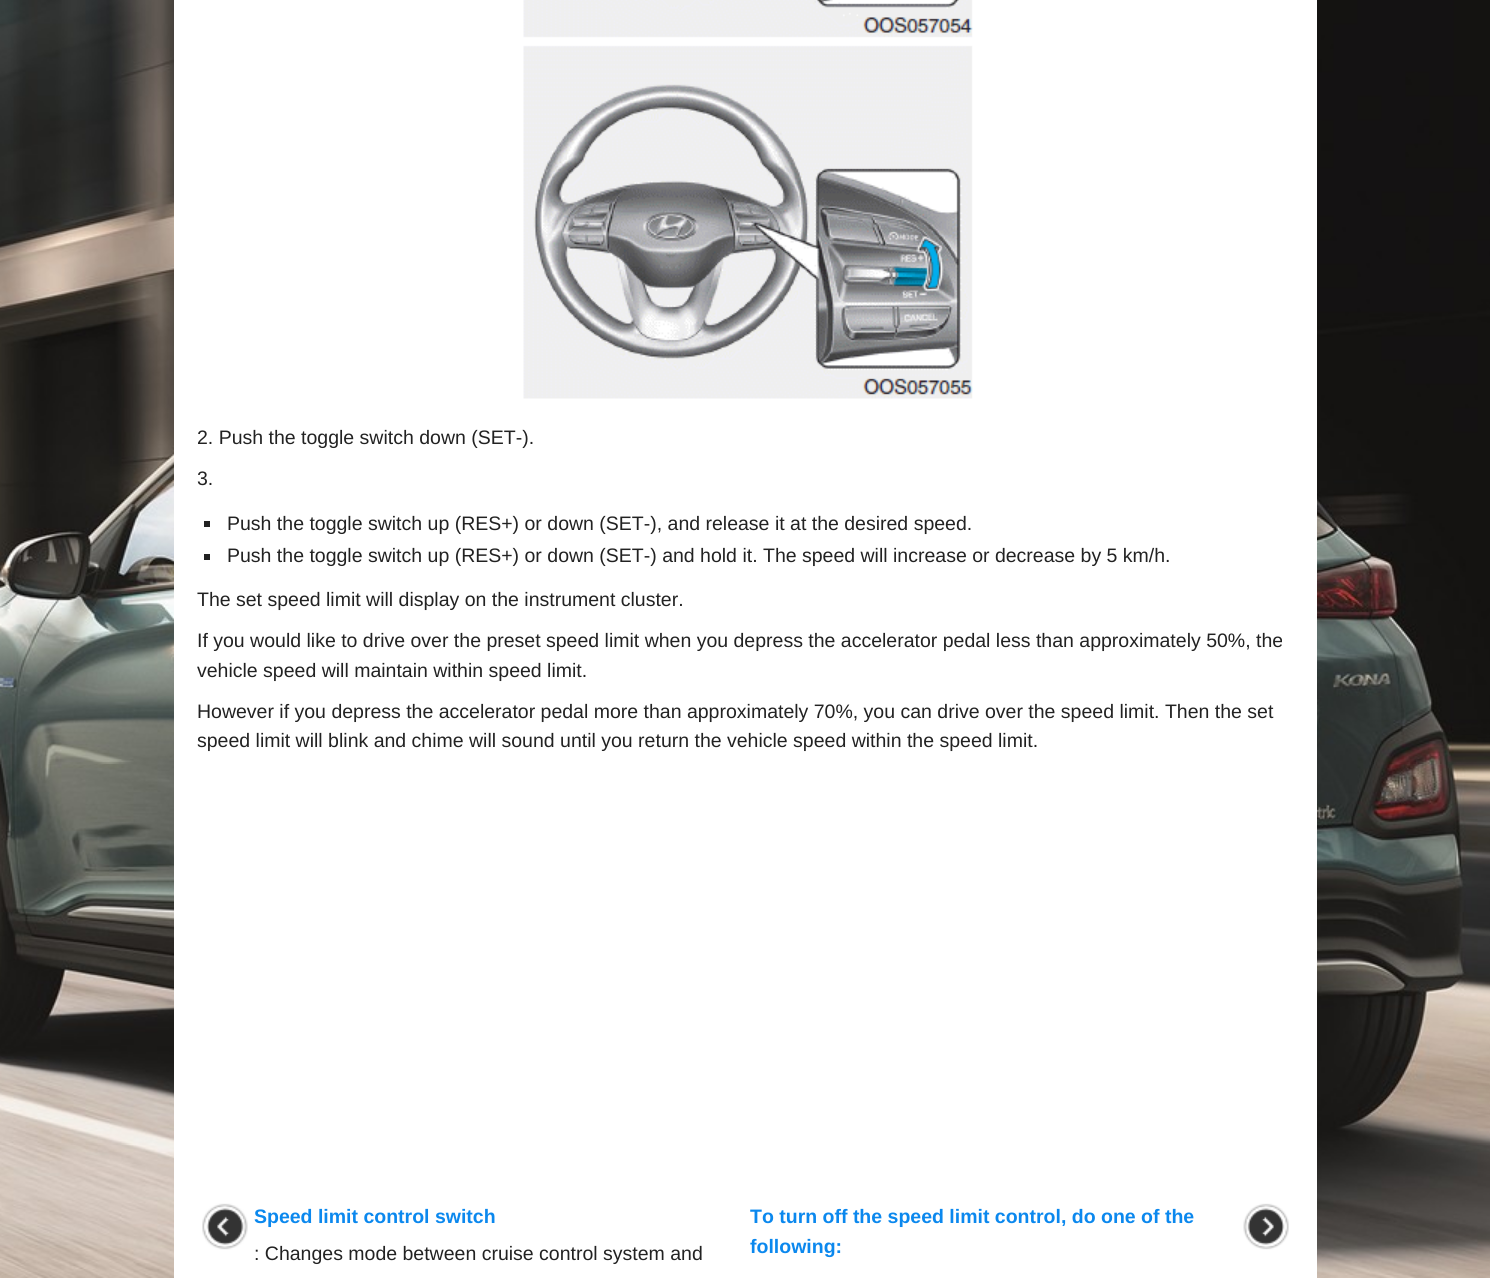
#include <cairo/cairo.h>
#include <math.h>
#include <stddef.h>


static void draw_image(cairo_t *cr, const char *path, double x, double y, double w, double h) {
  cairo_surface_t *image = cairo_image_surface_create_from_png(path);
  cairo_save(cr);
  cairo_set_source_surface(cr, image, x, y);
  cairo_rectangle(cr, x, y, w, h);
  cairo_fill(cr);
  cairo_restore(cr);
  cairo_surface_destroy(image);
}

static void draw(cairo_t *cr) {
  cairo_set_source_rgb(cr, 1, 1, 1);
  cairo_paint(cr);
  draw_image(cr, "images/1.png", 0, 0, 1490, 1278);
  cairo_set_source_rgb(cr, 1, 1, 1);
  cairo_rectangle(cr, 174, 0, 1143, 1278);
  cairo_fill(cr);
  draw_image(cr, "images/2.png", 523, 0, 450, 399);
  cairo_set_source_rgb(cr, 34 / 255.0, 34 / 255.0, 34 / 255.0);
  cairo_rectangle(cr, 204, 521, 6, 6);
  cairo_fill(cr);
  cairo_rectangle(cr, 204, 554, 6, 6);
  cairo_fill(cr);
  draw_image(cr, "images/3.png", 202, 1203, 46, 47);
  draw_image(cr, "images/4.png", 1243, 1203, 46, 47);
  cairo_select_font_face(cr, "Liberation Sans", CAIRO_FONT_SLANT_NORMAL, CAIRO_FONT_WEIGHT_NORMAL);
  cairo_set_font_size(cr, 19.5);
  cairo_move_to(cr, 197, 444);
  cairo_show_text(cr, "2. Push the toggle switch down (SET-).");
  cairo_move_to(cr, 197, 485);
  cairo_show_text(cr, "3.");
  cairo_move_to(cr, 227, 530);
  cairo_show_text(cr, "Push the toggle switch up (RES+) or down (SET-), and release it at the desired speed.");
  cairo_move_to(cr, 227, 562);
  cairo_show_text(cr, "Push the toggle switch up (RES+) or down (SET-) and hold it. The speed will increase or decrease by 5 km/h.");
  cairo_move_to(cr, 197, 606);
  cairo_show_text(cr, "The set speed limit will display on the instrument cluster.");
  cairo_move_to(cr, 197, 647);
  cairo_show_text(cr, "If you would like to drive over the preset speed limit when you depress the accelerator pedal less than approximately 50%, the");
  cairo_move_to(cr, 197, 677);
  cairo_show_text(cr, "vehicle speed will maintain within speed limit.");
  cairo_move_to(cr, 197, 718);
  cairo_show_text(cr, "However if you depress the accelerator pedal more than approximately 70%, you can drive over the speed limit. Then the set");
  cairo_move_to(cr, 197, 747);
  cairo_show_text(cr, "speed limit will blink and chime will sound until you return the vehicle speed within the speed limit.");
  cairo_select_font_face(cr, "Liberation Sans", CAIRO_FONT_SLANT_NORMAL, CAIRO_FONT_WEIGHT_BOLD);
  cairo_set_source_rgb(cr, 11 / 255.0, 136 / 255.0, 238 / 255.0);
  cairo_move_to(cr, 254, 1223);
  cairo_show_text(cr, "Speed limit control switch");
  cairo_select_font_face(cr, "Liberation Sans", CAIRO_FONT_SLANT_NORMAL, CAIRO_FONT_WEIGHT_NORMAL);
  cairo_set_source_rgb(cr, 34 / 255.0, 34 / 255.0, 34 / 255.0);
  cairo_move_to(cr, 254, 1260);
  cairo_show_text(cr, ": Changes mode between cruise control system and");
  cairo_select_font_face(cr, "Liberation Sans", CAIRO_FONT_SLANT_NORMAL, CAIRO_FONT_WEIGHT_BOLD);
  cairo_set_source_rgb(cr, 11 / 255.0, 136 / 255.0, 238 / 255.0);
  cairo_move_to(cr, 750, 1223);
  cairo_show_text(cr, "To turn off the speed limit control, do one of the");
  cairo_move_to(cr, 750, 1253);
  cairo_show_text(cr, "following:");
}

int main(void) {
  cairo_surface_t *surface = cairo_image_surface_create(CAIRO_FORMAT_RGB24, 1490, 1278);
  cairo_t *cr = cairo_create(surface);
  cairo_font_options_t *options = cairo_font_options_create();
  cairo_font_options_set_hint_metrics(options, CAIRO_HINT_METRICS_OFF);
  cairo_font_options_set_hint_style(options, CAIRO_HINT_STYLE_NONE);
  cairo_set_font_options(cr, options);
  cairo_set_miter_limit(cr, 4);
  draw(cr);
  cairo_surface_write_to_png(surface, "out.png");
  cairo_font_options_destroy(options);
  cairo_destroy(cr);
  cairo_surface_destroy(surface);
  return 0;
}
